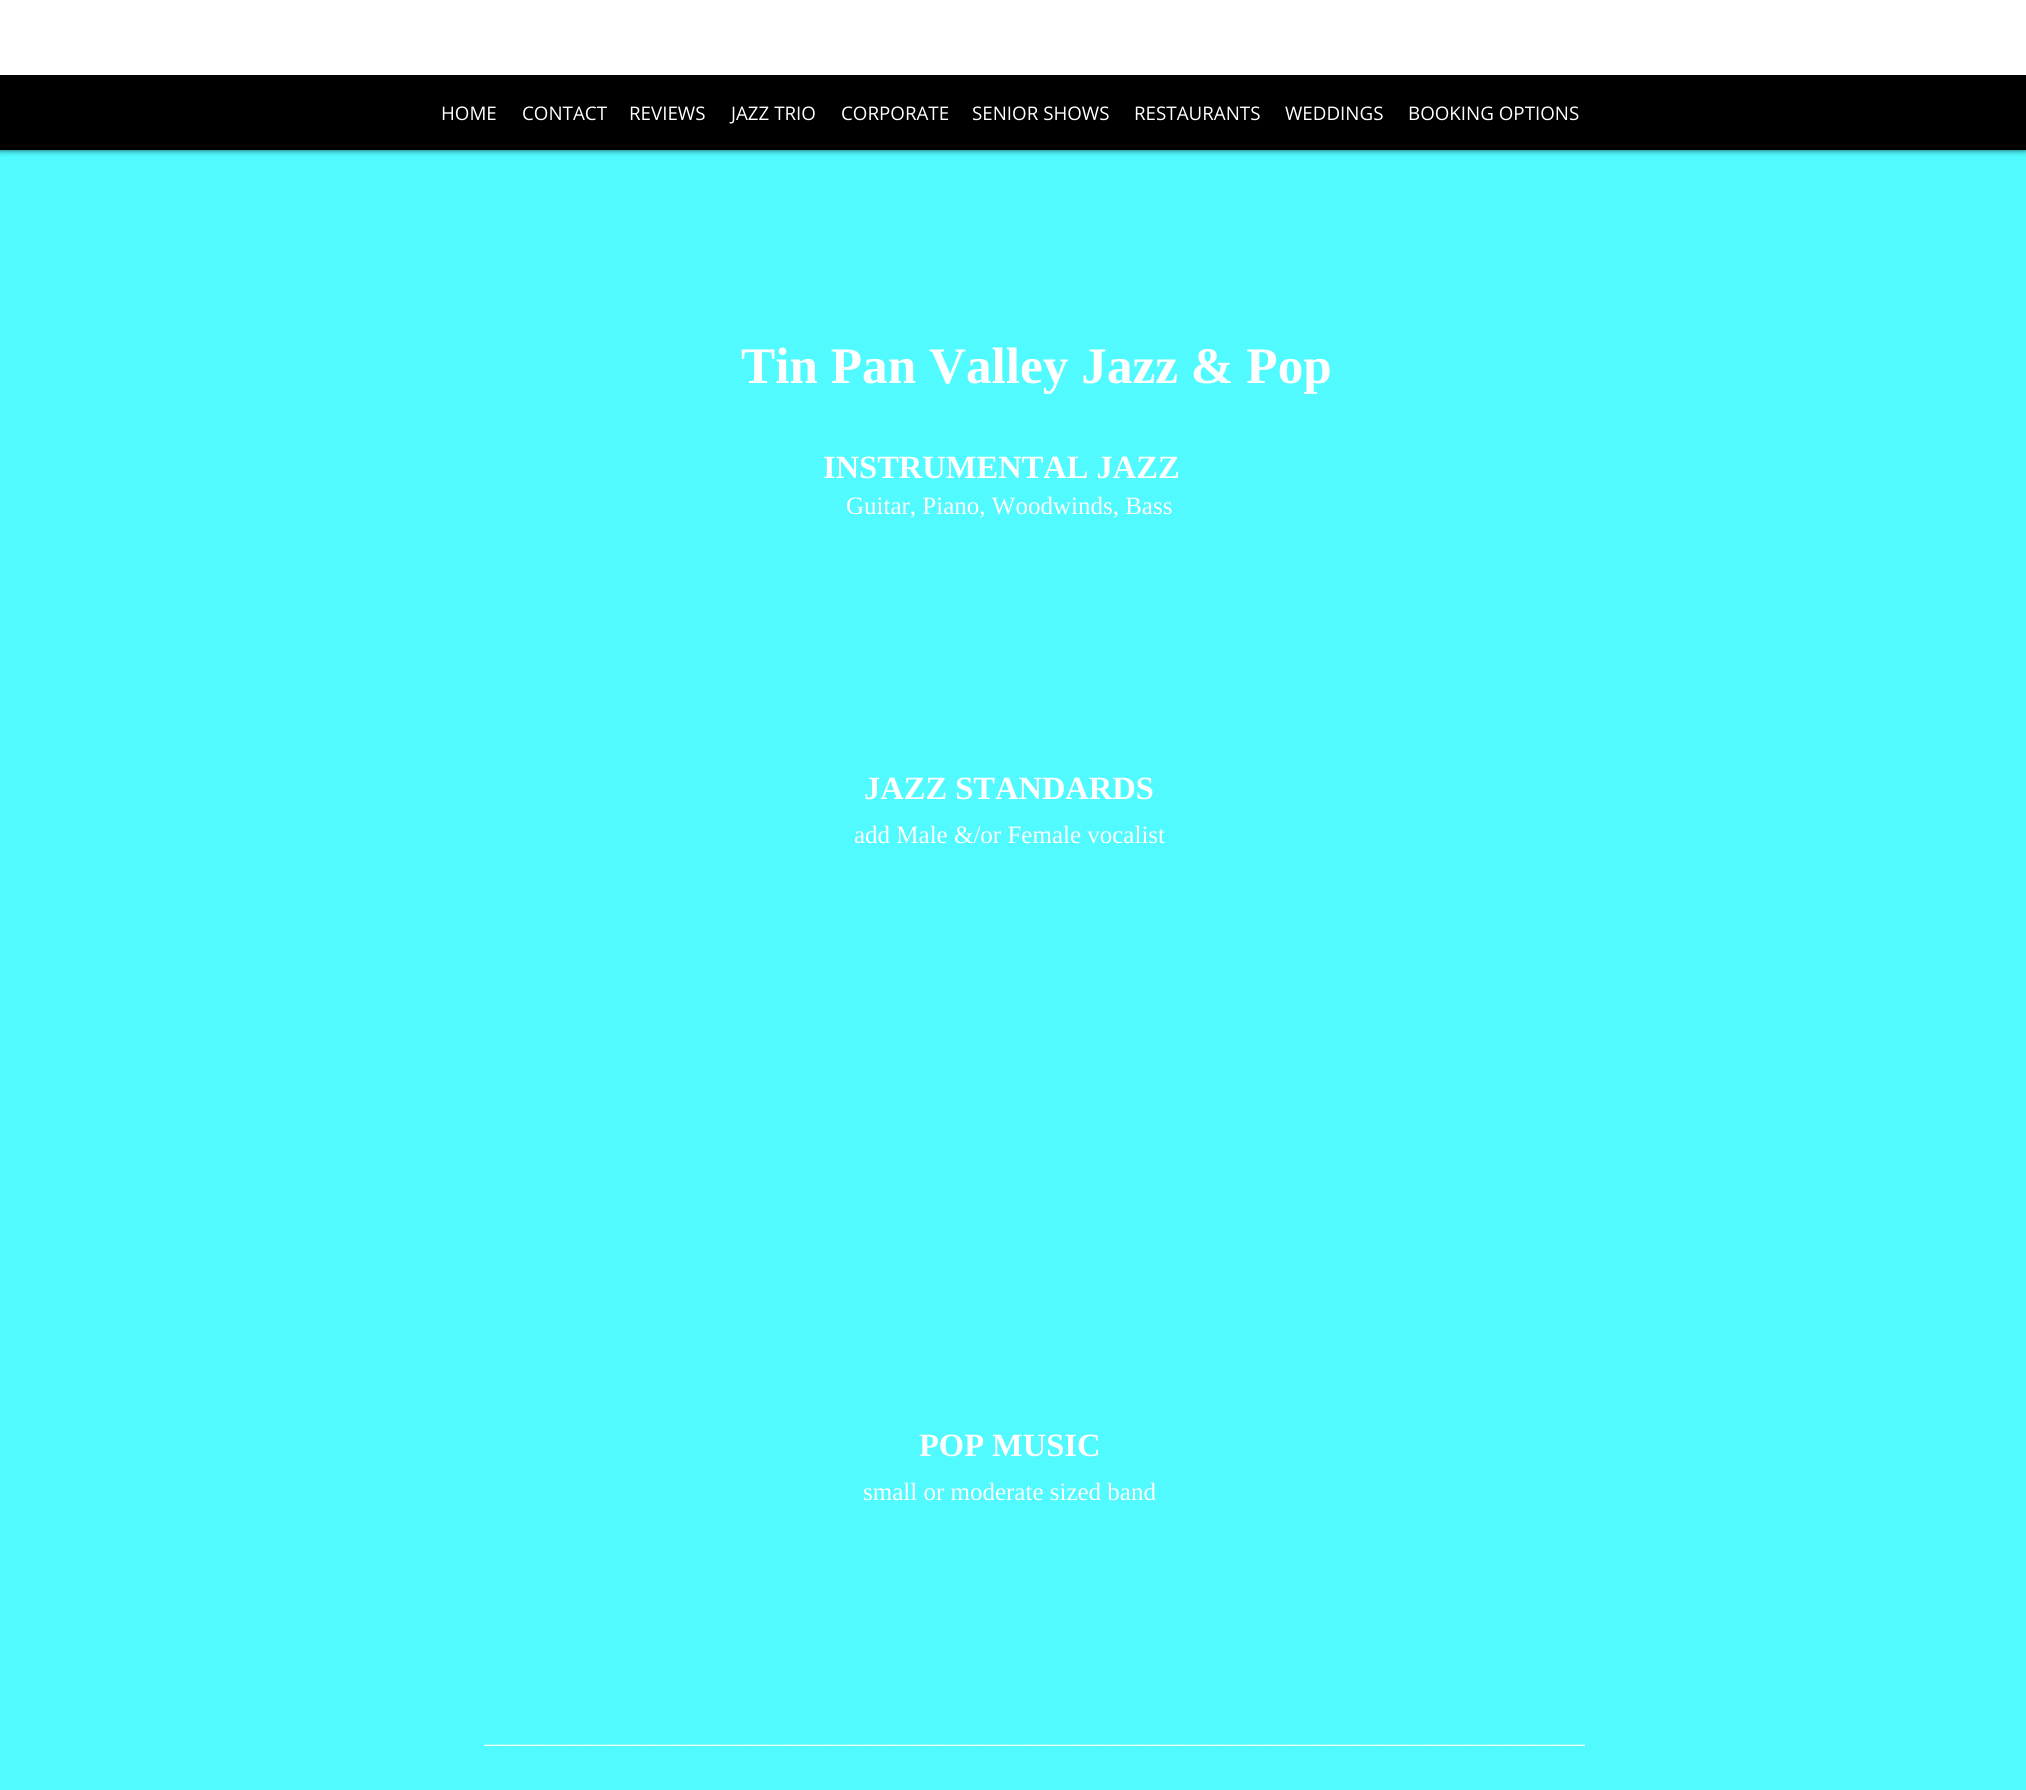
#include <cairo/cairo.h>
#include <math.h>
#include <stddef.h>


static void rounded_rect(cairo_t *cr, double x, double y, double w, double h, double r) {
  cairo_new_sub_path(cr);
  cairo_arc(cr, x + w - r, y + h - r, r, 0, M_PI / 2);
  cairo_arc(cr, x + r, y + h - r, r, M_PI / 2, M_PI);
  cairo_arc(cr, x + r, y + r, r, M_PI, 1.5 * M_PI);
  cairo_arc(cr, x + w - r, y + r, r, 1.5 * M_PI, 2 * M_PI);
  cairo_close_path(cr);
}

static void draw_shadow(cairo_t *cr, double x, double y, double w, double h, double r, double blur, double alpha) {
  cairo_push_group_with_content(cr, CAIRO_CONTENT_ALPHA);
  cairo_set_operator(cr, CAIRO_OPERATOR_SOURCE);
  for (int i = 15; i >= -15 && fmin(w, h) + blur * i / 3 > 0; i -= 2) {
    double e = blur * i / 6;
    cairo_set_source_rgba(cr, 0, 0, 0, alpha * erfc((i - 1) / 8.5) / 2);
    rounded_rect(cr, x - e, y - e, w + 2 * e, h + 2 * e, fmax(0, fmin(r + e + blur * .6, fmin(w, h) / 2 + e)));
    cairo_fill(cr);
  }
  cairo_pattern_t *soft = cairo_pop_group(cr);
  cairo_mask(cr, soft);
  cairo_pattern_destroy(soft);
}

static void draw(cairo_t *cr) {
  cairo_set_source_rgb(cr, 80 / 255.0, 250 / 255.0, 254 / 255.0);
  cairo_paint(cr);
  cairo_set_source_rgb(cr, 0, 0, 0);
  draw_shadow(cr, 0, 0, 2026, 150, 0, 3, 0.7);
  cairo_set_source_rgb(cr, 0, 0, 0);
  cairo_rectangle(cr, 0, 75, 2026, 75);
  cairo_fill(cr);
  cairo_set_source_rgb(cr, 1, 1, 1);
  cairo_rectangle(cr, 0, 0, 2026, 75);
  cairo_fill(cr);
  cairo_select_font_face(cr, "Open Sans", CAIRO_FONT_SLANT_NORMAL, CAIRO_FONT_WEIGHT_NORMAL);
  cairo_set_font_size(cr, 18.75);
  cairo_move_to(cr, 441, 120);
  cairo_show_text(cr, "HOME");
  cairo_move_to(cr, 522, 120);
  cairo_show_text(cr, "CONTACT");
  cairo_move_to(cr, 629, 120);
  cairo_show_text(cr, "REVIEWS");
  cairo_move_to(cr, 731, 120);
  cairo_show_text(cr, "JAZZ TRIO");
  cairo_move_to(cr, 841, 120);
  cairo_show_text(cr, "CORPORATE");
  cairo_move_to(cr, 972, 120);
  cairo_show_text(cr, "SENIOR SHOWS");
  cairo_move_to(cr, 1134, 120);
  cairo_show_text(cr, "RESTAURANTS");
  cairo_move_to(cr, 1285, 120);
  cairo_show_text(cr, "WEDDINGS");
  cairo_move_to(cr, 1408, 120);
  cairo_show_text(cr, "BOOKING OPTIONS");
  cairo_select_font_face(cr, "Liberation Serif", CAIRO_FONT_SLANT_NORMAL, CAIRO_FONT_WEIGHT_BOLD);
  cairo_set_font_size(cr, 51.25);
  cairo_move_to(cr, 741, 383);
  cairo_show_text(cr, "Tin Pan Valley Jazz & Pop");
  cairo_set_font_size(cr, 32.5);
  cairo_move_to(cr, 823, 478);
  cairo_show_text(cr, "INSTRUMENTAL JAZZ");
  cairo_select_font_face(cr, "Liberation Serif", CAIRO_FONT_SLANT_NORMAL, CAIRO_FONT_WEIGHT_NORMAL);
  cairo_set_font_size(cr, 25);
  cairo_move_to(cr, 846, 514);
  cairo_show_text(cr, "Guitar, Piano, Woodwinds, Bass");
  cairo_select_font_face(cr, "Liberation Serif", CAIRO_FONT_SLANT_NORMAL, CAIRO_FONT_WEIGHT_BOLD);
  cairo_set_font_size(cr, 32.5);
  cairo_move_to(cr, 864, 799);
  cairo_show_text(cr, "JAZZ STANDARDS");
  cairo_select_font_face(cr, "Liberation Serif", CAIRO_FONT_SLANT_NORMAL, CAIRO_FONT_WEIGHT_NORMAL);
  cairo_set_font_size(cr, 25);
  cairo_move_to(cr, 854, 843);
  cairo_show_text(cr, "add Male &/or Female vocalist");
  cairo_select_font_face(cr, "Liberation Serif", CAIRO_FONT_SLANT_NORMAL, CAIRO_FONT_WEIGHT_BOLD);
  cairo_set_font_size(cr, 32.5);
  cairo_move_to(cr, 919, 1456);
  cairo_show_text(cr, "POP MUSIC");
  cairo_select_font_face(cr, "Liberation Serif", CAIRO_FONT_SLANT_NORMAL, CAIRO_FONT_WEIGHT_NORMAL);
  cairo_set_font_size(cr, 25);
  cairo_move_to(cr, 863, 1500);
  cairo_show_text(cr, "small or moderate sized band");
  cairo_select_font_face(cr, "Open Sans", CAIRO_FONT_SLANT_NORMAL, CAIRO_FONT_WEIGHT_NORMAL);
  cairo_set_font_size(cr, 18.75);
  cairo_move_to(cr, 484, 1743);
  cairo_show_text(cr, "___________________________________________________________________________________________________________________________________");
}

int main(void) {
  cairo_surface_t *surface = cairo_image_surface_create(CAIRO_FORMAT_RGB24, 2026, 1790);
  cairo_t *cr = cairo_create(surface);
  cairo_font_options_t *options = cairo_font_options_create();
  cairo_font_options_set_hint_metrics(options, CAIRO_HINT_METRICS_OFF);
  cairo_font_options_set_hint_style(options, CAIRO_HINT_STYLE_NONE);
  cairo_set_font_options(cr, options);
  cairo_set_miter_limit(cr, 4);
  draw(cr);
  cairo_surface_write_to_png(surface, "out.png");
  cairo_font_options_destroy(options);
  cairo_destroy(cr);
  cairo_surface_destroy(surface);
  return 0;
}
